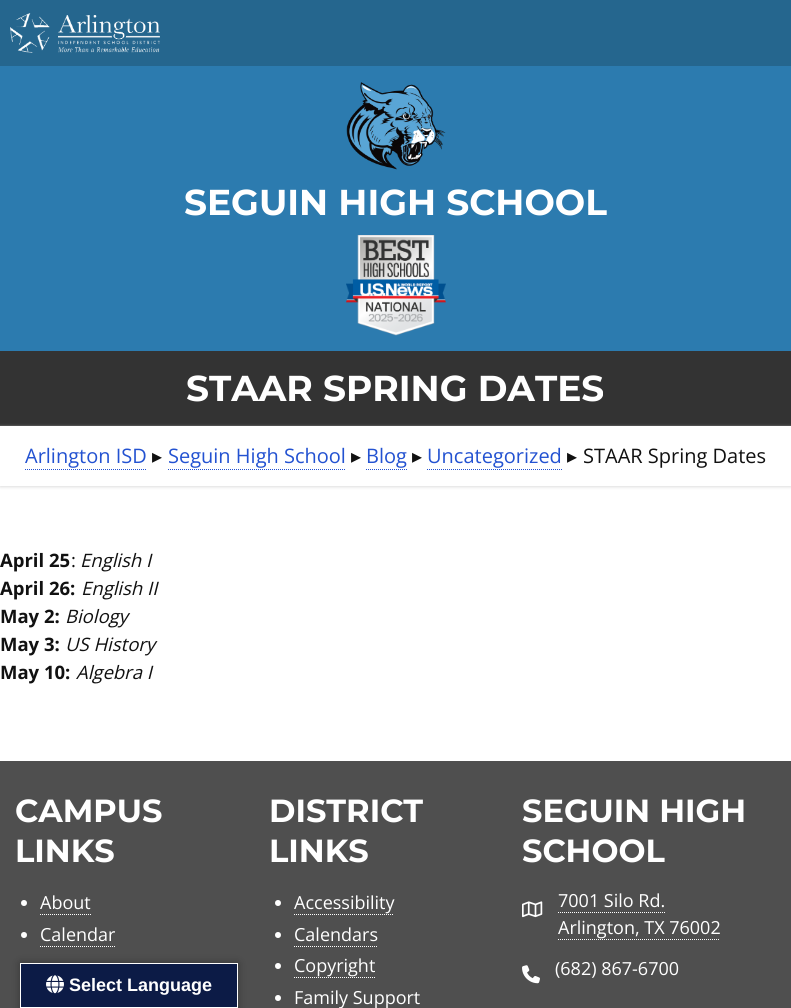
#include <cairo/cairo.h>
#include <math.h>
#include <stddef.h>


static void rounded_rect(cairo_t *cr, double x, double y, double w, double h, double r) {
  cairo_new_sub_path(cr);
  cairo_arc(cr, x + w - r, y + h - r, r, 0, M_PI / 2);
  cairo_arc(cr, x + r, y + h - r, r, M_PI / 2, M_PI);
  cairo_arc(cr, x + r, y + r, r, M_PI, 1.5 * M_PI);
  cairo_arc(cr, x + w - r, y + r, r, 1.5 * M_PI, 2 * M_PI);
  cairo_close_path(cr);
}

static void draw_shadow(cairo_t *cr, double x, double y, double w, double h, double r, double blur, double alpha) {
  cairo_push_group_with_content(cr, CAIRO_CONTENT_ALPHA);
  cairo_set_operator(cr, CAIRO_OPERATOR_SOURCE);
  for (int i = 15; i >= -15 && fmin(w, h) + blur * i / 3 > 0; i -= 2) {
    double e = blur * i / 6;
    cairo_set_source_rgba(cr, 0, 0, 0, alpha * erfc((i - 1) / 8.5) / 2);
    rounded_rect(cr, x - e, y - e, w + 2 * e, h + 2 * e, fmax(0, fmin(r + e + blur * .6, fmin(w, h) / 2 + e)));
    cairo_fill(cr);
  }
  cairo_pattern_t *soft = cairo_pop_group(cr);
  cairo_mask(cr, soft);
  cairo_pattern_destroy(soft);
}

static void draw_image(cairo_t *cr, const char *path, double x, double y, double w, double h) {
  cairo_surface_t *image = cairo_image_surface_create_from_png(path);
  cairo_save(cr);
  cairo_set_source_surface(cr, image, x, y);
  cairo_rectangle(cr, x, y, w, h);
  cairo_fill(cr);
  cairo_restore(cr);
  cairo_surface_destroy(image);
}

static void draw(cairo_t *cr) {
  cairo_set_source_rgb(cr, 51 / 255.0, 51 / 255.0, 51 / 255.0);
  cairo_paint(cr);
  cairo_set_source_rgb(cr, 37 / 255.0, 102 / 255.0, 142 / 255.0);
  cairo_rectangle(cr, 0, 0, 791, 66);
  cairo_fill(cr);
  draw_image(cr, "images/1.png", 10, 13, 150, 40);
  cairo_set_source_rgb(cr, 44 / 255.0, 123 / 255.0, 175 / 255.0);
  cairo_rectangle(cr, 0, 66, 791, 285);
  cairo_fill(cr);
  draw_image(cr, "images/2.png", 346, 82, 100, 88);
  draw_image(cr, "images/3.png", 346, 235, 100, 101);
  cairo_set_source_rgb(cr, 1, 1, 1);
  cairo_rectangle(cr, 0, 426, 791, 335);
  cairo_fill(cr);
  cairo_save(cr);
  cairo_set_fill_rule(cr, CAIRO_FILL_RULE_EVEN_ODD);
  cairo_new_path(cr);
  cairo_move_to(cr, 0, 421);
  cairo_line_to(cr, 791, 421);
  cairo_line_to(cr, 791, 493);
  cairo_line_to(cr, 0, 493);
  cairo_close_path(cr);
  cairo_move_to(cr, 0, 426);
  cairo_line_to(cr, 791, 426);
  cairo_line_to(cr, 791, 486);
  cairo_line_to(cr, 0, 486);
  cairo_close_path(cr);
  cairo_clip(cr);
  cairo_set_source_rgb(cr, 221 / 255.0, 221 / 255.0, 221 / 255.0);
  draw_shadow(cr, 0, 427, 791, 60, 0, 1.5, 1);
  cairo_restore(cr);
  cairo_new_path(cr);
  cairo_move_to(cr, 25, 469.5);
  cairo_line_to(cr, 147, 469.5);
  cairo_set_source_rgb(cr, 35 / 255.0, 82 / 255.0, 209 / 255.0);
  cairo_set_line_width(cr, 1);
  cairo_set_dash(cr, (double[]){1, 1}, 2, 0);
  cairo_stroke(cr);
  cairo_new_path(cr);
  cairo_move_to(cr, 168, 469.5);
  cairo_line_to(cr, 345, 469.5);
  cairo_stroke(cr);
  cairo_new_path(cr);
  cairo_move_to(cr, 366, 469.5);
  cairo_line_to(cr, 407, 469.5);
  cairo_stroke(cr);
  cairo_new_path(cr);
  cairo_move_to(cr, 427, 469.5);
  cairo_line_to(cr, 562, 469.5);
  cairo_stroke(cr);
  cairo_set_source_rgb(cr, 79 / 255.0, 79 / 255.0, 79 / 255.0);
  cairo_rectangle(cr, 0, 761, 791, 247);
  cairo_fill(cr);
  cairo_set_source_rgb(cr, 1, 1, 1);
  cairo_arc(cr, 24, 903, 3, 0, 2 * M_PI);
  cairo_fill(cr);
  cairo_new_path(cr);
  cairo_move_to(cr, 40, 914.5);
  cairo_line_to(cr, 91, 914.5);
  cairo_stroke(cr);
  cairo_arc(cr, 24, 935, 3, 0, 2 * M_PI);
  cairo_fill(cr);
  cairo_new_path(cr);
  cairo_move_to(cr, 40, 946.5);
  cairo_line_to(cr, 115, 946.5);
  cairo_stroke(cr);
  cairo_arc(cr, 278, 903, 3, 0, 2 * M_PI);
  cairo_fill(cr);
  cairo_new_path(cr);
  cairo_move_to(cr, 294, 914.5);
  cairo_line_to(cr, 394, 914.5);
  cairo_stroke(cr);
  cairo_arc(cr, 278, 935, 3, 0, 2 * M_PI);
  cairo_fill(cr);
  cairo_new_path(cr);
  cairo_move_to(cr, 294, 946.5);
  cairo_line_to(cr, 378, 946.5);
  cairo_stroke(cr);
  cairo_arc(cr, 278, 966, 3, 0, 2 * M_PI);
  cairo_fill(cr);
  cairo_new_path(cr);
  cairo_move_to(cr, 294, 977.5);
  cairo_line_to(cr, 375, 977.5);
  cairo_stroke(cr);
  cairo_arc(cr, 278, 998, 3, 0, 2 * M_PI);
  cairo_fill(cr);
  draw_image(cr, "images/4.png", 522, 901, 21, 17);
  cairo_new_path(cr);
  cairo_move_to(cr, 558, 912.5);
  cairo_line_to(cr, 665, 912.5);
  cairo_stroke(cr);
  cairo_new_path(cr);
  cairo_move_to(cr, 558, 939.5);
  cairo_line_to(cr, 720, 939.5);
  cairo_stroke(cr);
  draw_image(cr, "images/5.png", 522, 965, 18, 19);
  cairo_set_source_rgb(cr, 0, 0, 0);
  draw_shadow(cr, 20, 963, 218, 45, 0, 4.5, 0.3);
  cairo_set_source_rgb(cr, 12 / 255.0, 27 / 255.0, 70 / 255.0);
  cairo_rectangle(cr, 20.5, 963.5, 217, 44);
  cairo_fill_preserve(cr);
  cairo_set_source_rgb(cr, 1, 1, 1);
  cairo_set_dash(cr, NULL, 0, 0);
  cairo_stroke(cr);
  draw_image(cr, "images/6.png", 46, 975, 18, 19);
  cairo_select_font_face(cr, "Montserrat", CAIRO_FONT_SLANT_NORMAL, CAIRO_FONT_WEIGHT_BOLD);
  cairo_set_font_size(cr, 36);
  cairo_move_to(cr, 184, 215);
  cairo_show_text(cr, "SEGUIN HIGH SCHOOL");
  cairo_move_to(cr, 186, 401);
  cairo_show_text(cr, "STAAR SPRING DATES");
  cairo_select_font_face(cr, "Open Sans", CAIRO_FONT_SLANT_NORMAL, CAIRO_FONT_WEIGHT_NORMAL);
  cairo_set_font_size(cr, 20);
  cairo_set_source_rgb(cr, 35 / 255.0, 82 / 255.0, 209 / 255.0);
  cairo_move_to(cr, 25, 463);
  cairo_show_text(cr, "Arlington ISD");
  cairo_select_font_face(cr, "DejaVu Sans", CAIRO_FONT_SLANT_NORMAL, CAIRO_FONT_WEIGHT_NORMAL);
  cairo_set_source_rgb(cr, 17 / 255.0, 17 / 255.0, 17 / 255.0);
  cairo_move_to(cr, 152, 463);
  cairo_show_text(cr, "▸");
  cairo_select_font_face(cr, "Open Sans", CAIRO_FONT_SLANT_NORMAL, CAIRO_FONT_WEIGHT_NORMAL);
  cairo_set_source_rgb(cr, 35 / 255.0, 82 / 255.0, 209 / 255.0);
  cairo_move_to(cr, 168, 463);
  cairo_show_text(cr, "Seguin High School");
  cairo_select_font_face(cr, "DejaVu Sans", CAIRO_FONT_SLANT_NORMAL, CAIRO_FONT_WEIGHT_NORMAL);
  cairo_set_source_rgb(cr, 17 / 255.0, 17 / 255.0, 17 / 255.0);
  cairo_move_to(cr, 351, 463);
  cairo_show_text(cr, "▸");
  cairo_select_font_face(cr, "Open Sans", CAIRO_FONT_SLANT_NORMAL, CAIRO_FONT_WEIGHT_NORMAL);
  cairo_set_source_rgb(cr, 35 / 255.0, 82 / 255.0, 209 / 255.0);
  cairo_move_to(cr, 366, 463);
  cairo_show_text(cr, "Blog");
  cairo_select_font_face(cr, "DejaVu Sans", CAIRO_FONT_SLANT_NORMAL, CAIRO_FONT_WEIGHT_NORMAL);
  cairo_set_source_rgb(cr, 17 / 255.0, 17 / 255.0, 17 / 255.0);
  cairo_move_to(cr, 412, 463);
  cairo_show_text(cr, "▸");
  cairo_select_font_face(cr, "Open Sans", CAIRO_FONT_SLANT_NORMAL, CAIRO_FONT_WEIGHT_NORMAL);
  cairo_set_source_rgb(cr, 35 / 255.0, 82 / 255.0, 209 / 255.0);
  cairo_move_to(cr, 427, 463);
  cairo_show_text(cr, "Uncategorized");
  cairo_select_font_face(cr, "DejaVu Sans", CAIRO_FONT_SLANT_NORMAL, CAIRO_FONT_WEIGHT_NORMAL);
  cairo_set_source_rgb(cr, 17 / 255.0, 17 / 255.0, 17 / 255.0);
  cairo_move_to(cr, 567, 463);
  cairo_show_text(cr, "▸");
  cairo_select_font_face(cr, "Open Sans", CAIRO_FONT_SLANT_NORMAL, CAIRO_FONT_WEIGHT_NORMAL);
  cairo_move_to(cr, 583, 463);
  cairo_show_text(cr, "STAAR Spring Dates");
  cairo_select_font_face(cr, "Open Sans", CAIRO_FONT_SLANT_NORMAL, CAIRO_FONT_WEIGHT_BOLD);
  cairo_set_font_size(cr, 18.5);
  cairo_move_to(cr, 0, 567);
  cairo_show_text(cr, "April 25");
  cairo_select_font_face(cr, "Open Sans", CAIRO_FONT_SLANT_NORMAL, CAIRO_FONT_WEIGHT_NORMAL);
  cairo_move_to(cr, 71, 567);
  cairo_show_text(cr, ":");
  cairo_select_font_face(cr, "Open Sans", CAIRO_FONT_SLANT_ITALIC, CAIRO_FONT_WEIGHT_NORMAL);
  cairo_move_to(cr, 80, 567);
  cairo_show_text(cr, "English I");
  cairo_select_font_face(cr, "Open Sans", CAIRO_FONT_SLANT_NORMAL, CAIRO_FONT_WEIGHT_BOLD);
  cairo_move_to(cr, 0, 595);
  cairo_show_text(cr, "April 26:");
  cairo_select_font_face(cr, "Open Sans", CAIRO_FONT_SLANT_ITALIC, CAIRO_FONT_WEIGHT_NORMAL);
  cairo_move_to(cr, 81, 595);
  cairo_show_text(cr, "English II");
  cairo_select_font_face(cr, "Open Sans", CAIRO_FONT_SLANT_NORMAL, CAIRO_FONT_WEIGHT_BOLD);
  cairo_move_to(cr, 0, 623);
  cairo_show_text(cr, "May 2:");
  cairo_select_font_face(cr, "Open Sans", CAIRO_FONT_SLANT_ITALIC, CAIRO_FONT_WEIGHT_NORMAL);
  cairo_move_to(cr, 65, 623);
  cairo_show_text(cr, "Biology");
  cairo_select_font_face(cr, "Open Sans", CAIRO_FONT_SLANT_NORMAL, CAIRO_FONT_WEIGHT_BOLD);
  cairo_move_to(cr, 0, 651);
  cairo_show_text(cr, "May 3:");
  cairo_select_font_face(cr, "Open Sans", CAIRO_FONT_SLANT_ITALIC, CAIRO_FONT_WEIGHT_NORMAL);
  cairo_move_to(cr, 65, 651);
  cairo_show_text(cr, "US History");
  cairo_select_font_face(cr, "Open Sans", CAIRO_FONT_SLANT_NORMAL, CAIRO_FONT_WEIGHT_BOLD);
  cairo_move_to(cr, 0, 679);
  cairo_show_text(cr, "May 10:");
  cairo_select_font_face(cr, "Open Sans", CAIRO_FONT_SLANT_ITALIC, CAIRO_FONT_WEIGHT_NORMAL);
  cairo_move_to(cr, 76, 679);
  cairo_show_text(cr, "Algebra I");
  cairo_select_font_face(cr, "Montserrat", CAIRO_FONT_SLANT_NORMAL, CAIRO_FONT_WEIGHT_BOLD);
  cairo_set_font_size(cr, 32);
  cairo_set_source_rgb(cr, 1, 1, 1);
  cairo_move_to(cr, 15, 822);
  cairo_show_text(cr, "CAMPUS");
  cairo_move_to(cr, 15, 862);
  cairo_show_text(cr, "LINKS");
  cairo_select_font_face(cr, "Open Sans", CAIRO_FONT_SLANT_NORMAL, CAIRO_FONT_WEIGHT_NORMAL);
  cairo_set_font_size(cr, 18);
  cairo_move_to(cr, 40, 909);
  cairo_show_text(cr, "About");
  cairo_move_to(cr, 40, 941);
  cairo_show_text(cr, "Calendar");
  cairo_select_font_face(cr, "Montserrat", CAIRO_FONT_SLANT_NORMAL, CAIRO_FONT_WEIGHT_BOLD);
  cairo_set_font_size(cr, 32);
  cairo_move_to(cr, 269, 822);
  cairo_show_text(cr, "DISTRICT");
  cairo_move_to(cr, 269, 862);
  cairo_show_text(cr, "LINKS");
  cairo_select_font_face(cr, "Open Sans", CAIRO_FONT_SLANT_NORMAL, CAIRO_FONT_WEIGHT_NORMAL);
  cairo_set_font_size(cr, 18);
  cairo_move_to(cr, 294, 909);
  cairo_show_text(cr, "Accessibility");
  cairo_move_to(cr, 294, 941);
  cairo_show_text(cr, "Calendars");
  cairo_move_to(cr, 294, 972);
  cairo_show_text(cr, "Copyright");
  cairo_move_to(cr, 294, 1004);
  cairo_show_text(cr, "Family Support");
  cairo_select_font_face(cr, "Montserrat", CAIRO_FONT_SLANT_NORMAL, CAIRO_FONT_WEIGHT_BOLD);
  cairo_set_font_size(cr, 32);
  cairo_move_to(cr, 522, 822);
  cairo_show_text(cr, "SEGUIN HIGH");
  cairo_move_to(cr, 522, 862);
  cairo_show_text(cr, "SCHOOL");
  cairo_select_font_face(cr, "Open Sans", CAIRO_FONT_SLANT_NORMAL, CAIRO_FONT_WEIGHT_NORMAL);
  cairo_set_font_size(cr, 18);
  cairo_move_to(cr, 558, 907);
  cairo_show_text(cr, "7001 Silo Rd.");
  cairo_move_to(cr, 558, 934);
  cairo_show_text(cr, "Arlington, TX 76002");
  cairo_move_to(cr, 555, 975);
  cairo_show_text(cr, "(682) 867-6700");
  cairo_select_font_face(cr, "Liberation Sans", CAIRO_FONT_SLANT_NORMAL, CAIRO_FONT_WEIGHT_BOLD);
  cairo_move_to(cr, 69, 991);
  cairo_show_text(cr, "Select Language");
}

int main(void) {
  cairo_surface_t *surface = cairo_image_surface_create(CAIRO_FORMAT_RGB24, 791, 1008);
  cairo_t *cr = cairo_create(surface);
  cairo_font_options_t *options = cairo_font_options_create();
  cairo_font_options_set_hint_metrics(options, CAIRO_HINT_METRICS_OFF);
  cairo_font_options_set_hint_style(options, CAIRO_HINT_STYLE_NONE);
  cairo_set_font_options(cr, options);
  cairo_set_miter_limit(cr, 4);
  draw(cr);
  cairo_surface_write_to_png(surface, "out.png");
  cairo_font_options_destroy(options);
  cairo_destroy(cr);
  cairo_surface_destroy(surface);
  return 0;
}
